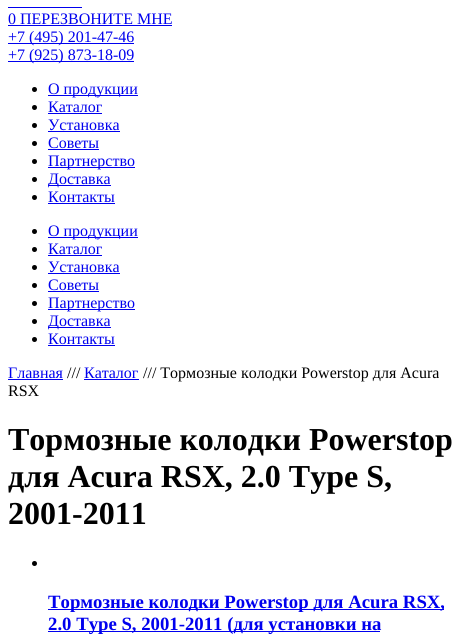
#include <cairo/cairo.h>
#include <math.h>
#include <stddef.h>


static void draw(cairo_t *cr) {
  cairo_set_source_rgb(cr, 1, 1, 1);
  cairo_paint(cr);
  cairo_set_source_rgb(cr, 0, 0, 238 / 255.0);
  cairo_rectangle(cr, 8, 7, 74, 1);
  cairo_fill(cr);
  cairo_rectangle(cr, 8, 25, 164, 1);
  cairo_fill(cr);
  cairo_rectangle(cr, 8, 43, 126, 1);
  cairo_fill(cr);
  cairo_rectangle(cr, 8, 61, 126, 1);
  cairo_fill(cr);
  cairo_set_source_rgb(cr, 0, 0, 0);
  cairo_arc(cr, 34.5, 89.5, 2.5, 0, 2 * M_PI);
  cairo_fill(cr);
  cairo_set_source_rgb(cr, 0, 0, 238 / 255.0);
  cairo_rectangle(cr, 48, 95, 90, 1);
  cairo_fill(cr);
  cairo_set_source_rgb(cr, 0, 0, 0);
  cairo_arc(cr, 34.5, 107.5, 2.5, 0, 2 * M_PI);
  cairo_fill(cr);
  cairo_set_source_rgb(cr, 0, 0, 238 / 255.0);
  cairo_rectangle(cr, 48, 113, 54, 1);
  cairo_fill(cr);
  cairo_set_source_rgb(cr, 0, 0, 0);
  cairo_arc(cr, 34.5, 125.5, 2.5, 0, 2 * M_PI);
  cairo_fill(cr);
  cairo_set_source_rgb(cr, 0, 0, 238 / 255.0);
  cairo_rectangle(cr, 48, 131, 72, 1);
  cairo_fill(cr);
  cairo_set_source_rgb(cr, 0, 0, 0);
  cairo_arc(cr, 34.5, 143.5, 2.5, 0, 2 * M_PI);
  cairo_fill(cr);
  cairo_set_source_rgb(cr, 0, 0, 238 / 255.0);
  cairo_rectangle(cr, 48, 149, 51, 1);
  cairo_fill(cr);
  cairo_set_source_rgb(cr, 0, 0, 0);
  cairo_arc(cr, 34.5, 161.5, 2.5, 0, 2 * M_PI);
  cairo_fill(cr);
  cairo_set_source_rgb(cr, 0, 0, 238 / 255.0);
  cairo_rectangle(cr, 48, 167, 87, 1);
  cairo_fill(cr);
  cairo_set_source_rgb(cr, 0, 0, 0);
  cairo_arc(cr, 34.5, 179.5, 2.5, 0, 2 * M_PI);
  cairo_fill(cr);
  cairo_set_source_rgb(cr, 0, 0, 238 / 255.0);
  cairo_rectangle(cr, 48, 185, 63, 1);
  cairo_fill(cr);
  cairo_set_source_rgb(cr, 0, 0, 0);
  cairo_arc(cr, 34.5, 197.5, 2.5, 0, 2 * M_PI);
  cairo_fill(cr);
  cairo_set_source_rgb(cr, 0, 0, 238 / 255.0);
  cairo_rectangle(cr, 48, 203, 67, 1);
  cairo_fill(cr);
  cairo_set_source_rgb(cr, 0, 0, 0);
  cairo_arc(cr, 34.5, 231.5, 2.5, 0, 2 * M_PI);
  cairo_fill(cr);
  cairo_set_source_rgb(cr, 0, 0, 238 / 255.0);
  cairo_rectangle(cr, 48, 237, 90, 1);
  cairo_fill(cr);
  cairo_set_source_rgb(cr, 0, 0, 0);
  cairo_arc(cr, 34.5, 249.5, 2.5, 0, 2 * M_PI);
  cairo_fill(cr);
  cairo_set_source_rgb(cr, 0, 0, 238 / 255.0);
  cairo_rectangle(cr, 48, 255, 54, 1);
  cairo_fill(cr);
  cairo_set_source_rgb(cr, 0, 0, 0);
  cairo_arc(cr, 34.5, 267.5, 2.5, 0, 2 * M_PI);
  cairo_fill(cr);
  cairo_set_source_rgb(cr, 0, 0, 238 / 255.0);
  cairo_rectangle(cr, 48, 273, 72, 1);
  cairo_fill(cr);
  cairo_set_source_rgb(cr, 0, 0, 0);
  cairo_arc(cr, 34.5, 285.5, 2.5, 0, 2 * M_PI);
  cairo_fill(cr);
  cairo_set_source_rgb(cr, 0, 0, 238 / 255.0);
  cairo_rectangle(cr, 48, 291, 51, 1);
  cairo_fill(cr);
  cairo_set_source_rgb(cr, 0, 0, 0);
  cairo_arc(cr, 34.5, 303.5, 2.5, 0, 2 * M_PI);
  cairo_fill(cr);
  cairo_set_source_rgb(cr, 0, 0, 238 / 255.0);
  cairo_rectangle(cr, 48, 309, 87, 1);
  cairo_fill(cr);
  cairo_set_source_rgb(cr, 0, 0, 0);
  cairo_arc(cr, 34.5, 321.5, 2.5, 0, 2 * M_PI);
  cairo_fill(cr);
  cairo_set_source_rgb(cr, 0, 0, 238 / 255.0);
  cairo_rectangle(cr, 48, 327, 63, 1);
  cairo_fill(cr);
  cairo_set_source_rgb(cr, 0, 0, 0);
  cairo_arc(cr, 34.5, 339.5, 2.5, 0, 2 * M_PI);
  cairo_fill(cr);
  cairo_set_source_rgb(cr, 0, 0, 238 / 255.0);
  cairo_rectangle(cr, 48, 345, 67, 1);
  cairo_fill(cr);
  cairo_rectangle(cr, 8, 379, 55, 1);
  cairo_fill(cr);
  cairo_rectangle(cr, 84, 379, 55, 1);
  cairo_fill(cr);
  cairo_set_source_rgb(cr, 0, 0, 0);
  cairo_arc(cr, 34.5, 563.5, 2.5, 0, 2 * M_PI);
  cairo_fill(cr);
  cairo_set_source_rgb(cr, 0, 0, 238 / 255.0);
  cairo_rectangle(cr, 48, 609, 396, 1);
  cairo_fill(cr);
  cairo_rectangle(cr, 48, 631, 332, 1);
  cairo_fill(cr);
  cairo_select_font_face(cr, "Liberation Serif", CAIRO_FONT_SLANT_NORMAL, CAIRO_FONT_WEIGHT_NORMAL);
  cairo_set_font_size(cr, 16);
  cairo_move_to(cr, 8, 24);
  cairo_show_text(cr, "0 ПЕРЕЗВОНИТЕ МНЕ");
  cairo_move_to(cr, 8, 42);
  cairo_show_text(cr, "+7 (495) 201-47-46");
  cairo_move_to(cr, 8, 60);
  cairo_show_text(cr, "+7 (925) 873-18-09");
  cairo_move_to(cr, 48, 94);
  cairo_show_text(cr, "О продукции");
  cairo_move_to(cr, 48, 112);
  cairo_show_text(cr, "Каталог");
  cairo_move_to(cr, 48, 130);
  cairo_show_text(cr, "Установка");
  cairo_move_to(cr, 48, 148);
  cairo_show_text(cr, "Советы");
  cairo_move_to(cr, 48, 166);
  cairo_show_text(cr, "Партнерство");
  cairo_move_to(cr, 48, 184);
  cairo_show_text(cr, "Доставка");
  cairo_move_to(cr, 48, 202);
  cairo_show_text(cr, "Контакты");
  cairo_move_to(cr, 48, 236);
  cairo_show_text(cr, "О продукции");
  cairo_move_to(cr, 48, 254);
  cairo_show_text(cr, "Каталог");
  cairo_move_to(cr, 48, 272);
  cairo_show_text(cr, "Установка");
  cairo_move_to(cr, 48, 290);
  cairo_show_text(cr, "Советы");
  cairo_move_to(cr, 48, 308);
  cairo_show_text(cr, "Партнерство");
  cairo_move_to(cr, 48, 326);
  cairo_show_text(cr, "Доставка");
  cairo_move_to(cr, 48, 344);
  cairo_show_text(cr, "Контакты");
  cairo_move_to(cr, 8, 378);
  cairo_show_text(cr, "Главная");
  cairo_set_source_rgb(cr, 0, 0, 0);
  cairo_move_to(cr, 67, 378);
  cairo_show_text(cr, "///");
  cairo_set_source_rgb(cr, 0, 0, 238 / 255.0);
  cairo_move_to(cr, 84, 378);
  cairo_show_text(cr, "Каталог");
  cairo_set_source_rgb(cr, 0, 0, 0);
  cairo_move_to(cr, 143, 378);
  cairo_show_text(cr, "/// Тормозные колодки Powerstop для Acura");
  cairo_move_to(cr, 8, 396);
  cairo_show_text(cr, "RSX");
  cairo_select_font_face(cr, "Liberation Serif", CAIRO_FONT_SLANT_NORMAL, CAIRO_FONT_WEIGHT_BOLD);
  cairo_set_font_size(cr, 32);
  cairo_move_to(cr, 8, 450);
  cairo_show_text(cr, "Тормозные колодки Powerstop");
  cairo_move_to(cr, 8, 487);
  cairo_show_text(cr, "для Acura RSX, 2.0 Type S,");
  cairo_move_to(cr, 8, 524);
  cairo_show_text(cr, "2001-2011");
  cairo_set_font_size(cr, 18.75);
  cairo_set_source_rgb(cr, 0, 0, 238 / 255.0);
  cairo_move_to(cr, 48, 608);
  cairo_show_text(cr, "Тормозные колодки Powerstop для Acura RSX,");
  cairo_move_to(cr, 48, 630);
  cairo_show_text(cr, "2.0 Type S, 2001-2011 (для установки на");
}

int main(void) {
  cairo_surface_t *surface = cairo_image_surface_create(CAIRO_FORMAT_RGB24, 467, 639);
  cairo_t *cr = cairo_create(surface);
  cairo_font_options_t *options = cairo_font_options_create();
  cairo_font_options_set_hint_metrics(options, CAIRO_HINT_METRICS_OFF);
  cairo_font_options_set_hint_style(options, CAIRO_HINT_STYLE_NONE);
  cairo_set_font_options(cr, options);
  cairo_set_miter_limit(cr, 4);
  draw(cr);
  cairo_surface_write_to_png(surface, "out.png");
  cairo_font_options_destroy(options);
  cairo_destroy(cr);
  cairo_surface_destroy(surface);
  return 0;
}
